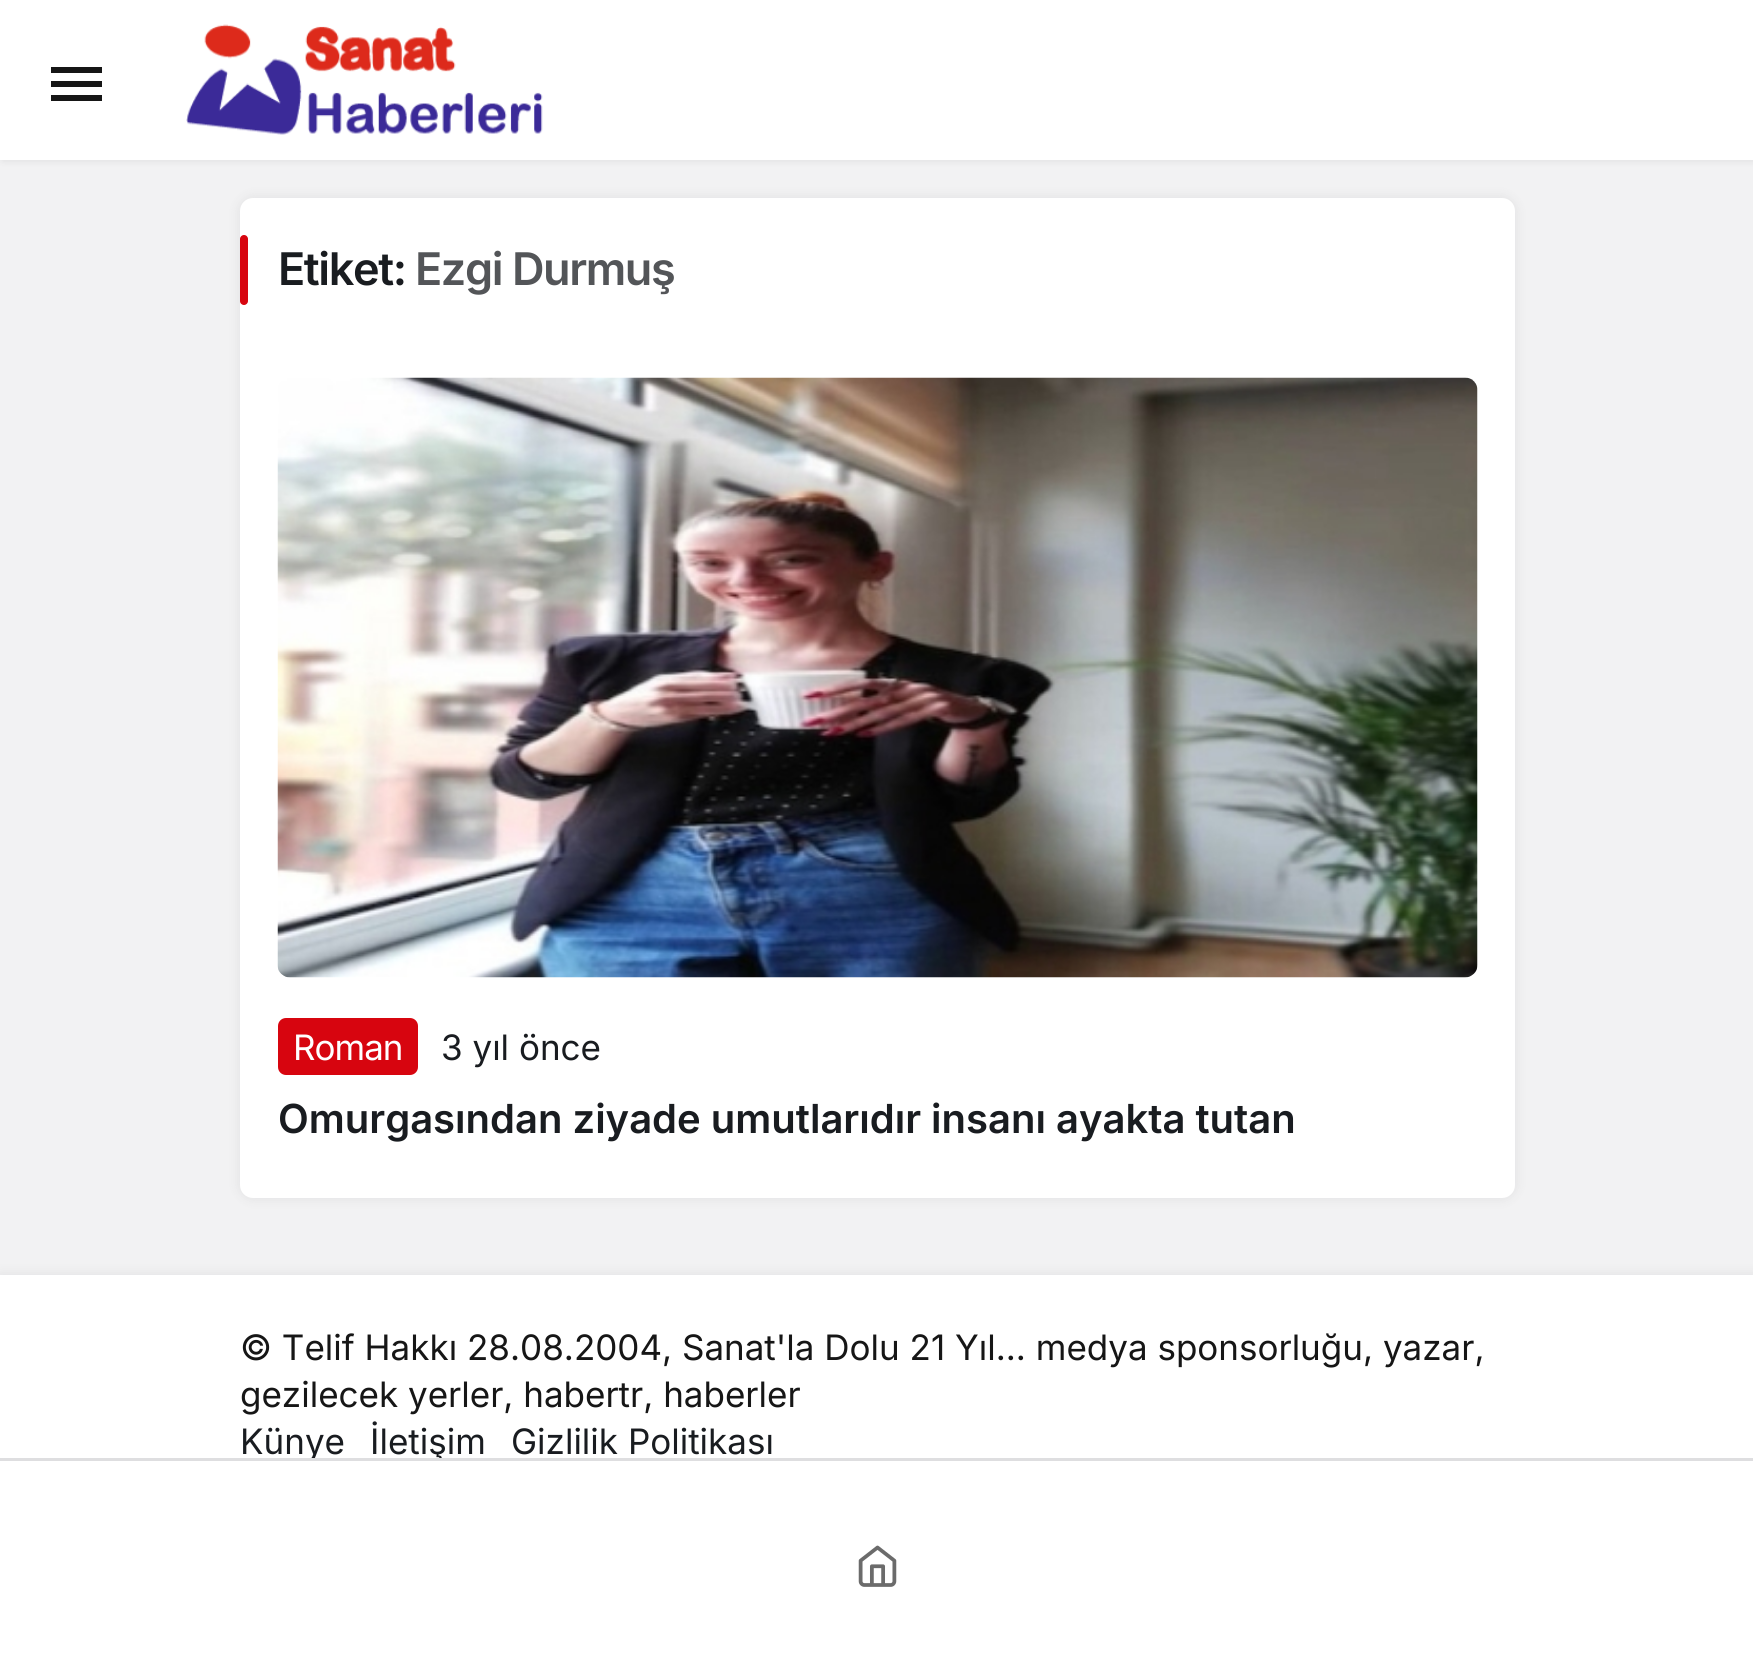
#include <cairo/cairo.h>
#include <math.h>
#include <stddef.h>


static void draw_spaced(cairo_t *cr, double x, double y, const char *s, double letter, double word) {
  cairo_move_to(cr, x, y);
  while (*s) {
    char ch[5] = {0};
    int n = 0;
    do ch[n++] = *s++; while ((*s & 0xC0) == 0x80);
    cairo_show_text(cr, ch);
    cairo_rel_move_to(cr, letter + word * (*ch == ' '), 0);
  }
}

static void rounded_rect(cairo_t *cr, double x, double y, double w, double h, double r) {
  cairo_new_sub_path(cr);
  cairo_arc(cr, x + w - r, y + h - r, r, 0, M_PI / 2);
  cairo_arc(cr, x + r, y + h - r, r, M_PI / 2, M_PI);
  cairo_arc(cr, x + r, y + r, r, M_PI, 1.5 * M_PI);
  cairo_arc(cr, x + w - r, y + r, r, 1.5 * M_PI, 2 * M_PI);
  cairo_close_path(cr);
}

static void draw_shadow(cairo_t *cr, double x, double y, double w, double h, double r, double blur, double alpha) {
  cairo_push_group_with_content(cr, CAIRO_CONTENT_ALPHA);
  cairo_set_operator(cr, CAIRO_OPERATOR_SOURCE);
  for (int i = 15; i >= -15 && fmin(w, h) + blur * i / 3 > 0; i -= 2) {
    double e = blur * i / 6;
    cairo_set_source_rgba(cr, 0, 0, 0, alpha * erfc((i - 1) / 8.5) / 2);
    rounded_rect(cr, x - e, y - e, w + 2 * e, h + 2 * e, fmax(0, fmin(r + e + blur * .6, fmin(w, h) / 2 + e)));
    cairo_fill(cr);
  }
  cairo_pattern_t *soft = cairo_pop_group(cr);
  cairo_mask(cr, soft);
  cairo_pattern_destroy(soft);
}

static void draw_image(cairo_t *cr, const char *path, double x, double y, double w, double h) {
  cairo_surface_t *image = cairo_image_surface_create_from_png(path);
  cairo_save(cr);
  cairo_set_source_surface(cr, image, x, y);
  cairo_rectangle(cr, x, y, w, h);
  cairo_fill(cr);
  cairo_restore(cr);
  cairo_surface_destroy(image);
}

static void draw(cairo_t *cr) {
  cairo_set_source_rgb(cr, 242 / 255.0, 242 / 255.0, 243 / 255.0);
  cairo_paint(cr);
  cairo_set_source_rgb(cr, 0, 0, 0);
  draw_shadow(cr, 3, 0, 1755, 160, 0, 4, 0.1);
  cairo_set_source_rgb(cr, 1, 1, 1);
  cairo_rectangle(cr, 0, 0, 1753, 160);
  cairo_fill(cr);
  cairo_set_source_rgb(cr, 22 / 255.0, 22 / 255.0, 22 / 255.0);
  cairo_new_path(cr);
  cairo_move_to(cr, 51, 67);
  cairo_line_to(cr, 102, 67);
  cairo_line_to(cr, 102, 73);
  cairo_line_to(cr, 51, 73);
  cairo_close_path(cr);
  cairo_move_to(cr, 51, 87);
  cairo_line_to(cr, 51, 81);
  cairo_line_to(cr, 102, 81);
  cairo_line_to(cr, 102, 87);
  cairo_close_path(cr);
  cairo_move_to(cr, 51, 101);
  cairo_line_to(cr, 51, 95);
  cairo_line_to(cr, 102, 95);
  cairo_line_to(cr, 102, 101);
  cairo_close_path(cr);
  cairo_fill(cr);
  draw_image(cr, "images/1.png", 186, 24, 357, 111);
  cairo_set_source_rgb(cr, 50 / 255.0, 53 / 255.0, 61 / 255.0);
  draw_shadow(cr, 240, 198, 1275, 1000, 13, 6, 0.1);
  cairo_set_source_rgb(cr, 1, 1, 1);
  rounded_rect(cr, 240, 198, 1275, 1000, 13);
  cairo_fill(cr);
  cairo_set_source_rgb(cr, 215 / 255.0, 5 / 255.0, 15 / 255.0);
  rounded_rect(cr, 240, 235, 8, 70, 4);
  cairo_fill(cr);
  draw_image(cr, "images/2.png", 277, 377, 1201, 601);
  rounded_rect(cr, 278, 1018, 140, 57, 8);
  cairo_fill(cr);
  cairo_set_source_rgb(cr, 50 / 255.0, 53 / 255.0, 61 / 255.0);
  draw_shadow(cr, 0, 1275, 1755, 238, 0, 6, 0.1);
  cairo_set_source_rgb(cr, 1, 1, 1);
  cairo_rectangle(cr, 0, 1275, 1753, 183);
  cairo_fill(cr);
  cairo_select_font_face(cr, "Inter SemiBold", CAIRO_FONT_SLANT_NORMAL, CAIRO_FONT_WEIGHT_NORMAL);
  cairo_set_font_size(cr, 45);
  cairo_set_source_rgb(cr, 25 / 255.0, 28 / 255.0, 32 / 255.0);
  draw_spaced(cr, 278, 285, "Etiket:", -1.4, 0);
  cairo_set_source_rgb(cr, 83 / 255.0, 85 / 255.0, 88 / 255.0);
  draw_spaced(cr, 415, 285, "Ezgi Durmuş", -1.4, 0);
  cairo_select_font_face(cr, "Inter", CAIRO_FONT_SLANT_NORMAL, CAIRO_FONT_WEIGHT_NORMAL);
  cairo_set_font_size(cr, 35);
  cairo_set_source_rgb(cr, 1, 1, 1);
  draw_spaced(cr, 293, 1060, "Roman", -1, 0);
  cairo_set_source_rgb(cr, 25 / 255.0, 28 / 255.0, 32 / 255.0);
  cairo_move_to(cr, 441, 1060);
  cairo_show_text(cr, "3 yıl önce");
  cairo_select_font_face(cr, "Inter SemiBold", CAIRO_FONT_SLANT_NORMAL, CAIRO_FONT_WEIGHT_NORMAL);
  cairo_set_font_size(cr, 40);
  cairo_move_to(cr, 278, 1133);
  cairo_show_text(cr, "Omurgasından ziyade umutlarıdır insanı ayakta tutan");
  cairo_select_font_face(cr, "Inter", CAIRO_FONT_SLANT_NORMAL, CAIRO_FONT_WEIGHT_NORMAL);
  cairo_set_font_size(cr, 35);
  cairo_set_source_rgb(cr, 22 / 255.0, 22 / 255.0, 22 / 255.0);
  cairo_move_to(cr, 240, 1360);
  cairo_show_text(cr, "© Telif Hakkı 28.08.2004, Sanat'la Dolu 21 Yıl... medya sponsorluğu, yazar,");
  cairo_move_to(cr, 240, 1407);
  cairo_show_text(cr, "gezilecek yerler, habertr, haberler");
  cairo_set_source_rgb(cr, 25 / 255.0, 28 / 255.0, 32 / 255.0);
  cairo_move_to(cr, 240, 1454);
  cairo_show_text(cr, "Künye");
  cairo_move_to(cr, 370, 1454);
  cairo_show_text(cr, "İletişim");
  cairo_move_to(cr, 511, 1454);
  cairo_show_text(cr, "Gizlilik Politikası");
  cairo_set_source_rgb(cr, 1, 1, 1);
  cairo_rectangle(cr, 0, 1461, 1753, 195);
  cairo_fill(cr);
  cairo_set_source_rgb(cr, 222 / 255.0, 222 / 255.0, 224 / 255.0);
  cairo_rectangle(cr, 0, 1458, 1753, 3);
  cairo_fill(cr);
  draw_image(cr, "images/3.png", 858, 1545, 39, 42);
}

int main(void) {
  cairo_surface_t *surface = cairo_image_surface_create(CAIRO_FORMAT_RGB24, 1753, 1656);
  cairo_t *cr = cairo_create(surface);
  cairo_font_options_t *options = cairo_font_options_create();
  cairo_font_options_set_hint_metrics(options, CAIRO_HINT_METRICS_OFF);
  cairo_font_options_set_hint_style(options, CAIRO_HINT_STYLE_NONE);
  cairo_set_font_options(cr, options);
  cairo_set_miter_limit(cr, 4);
  draw(cr);
  cairo_surface_write_to_png(surface, "out.png");
  cairo_font_options_destroy(options);
  cairo_destroy(cr);
  cairo_surface_destroy(surface);
  return 0;
}
